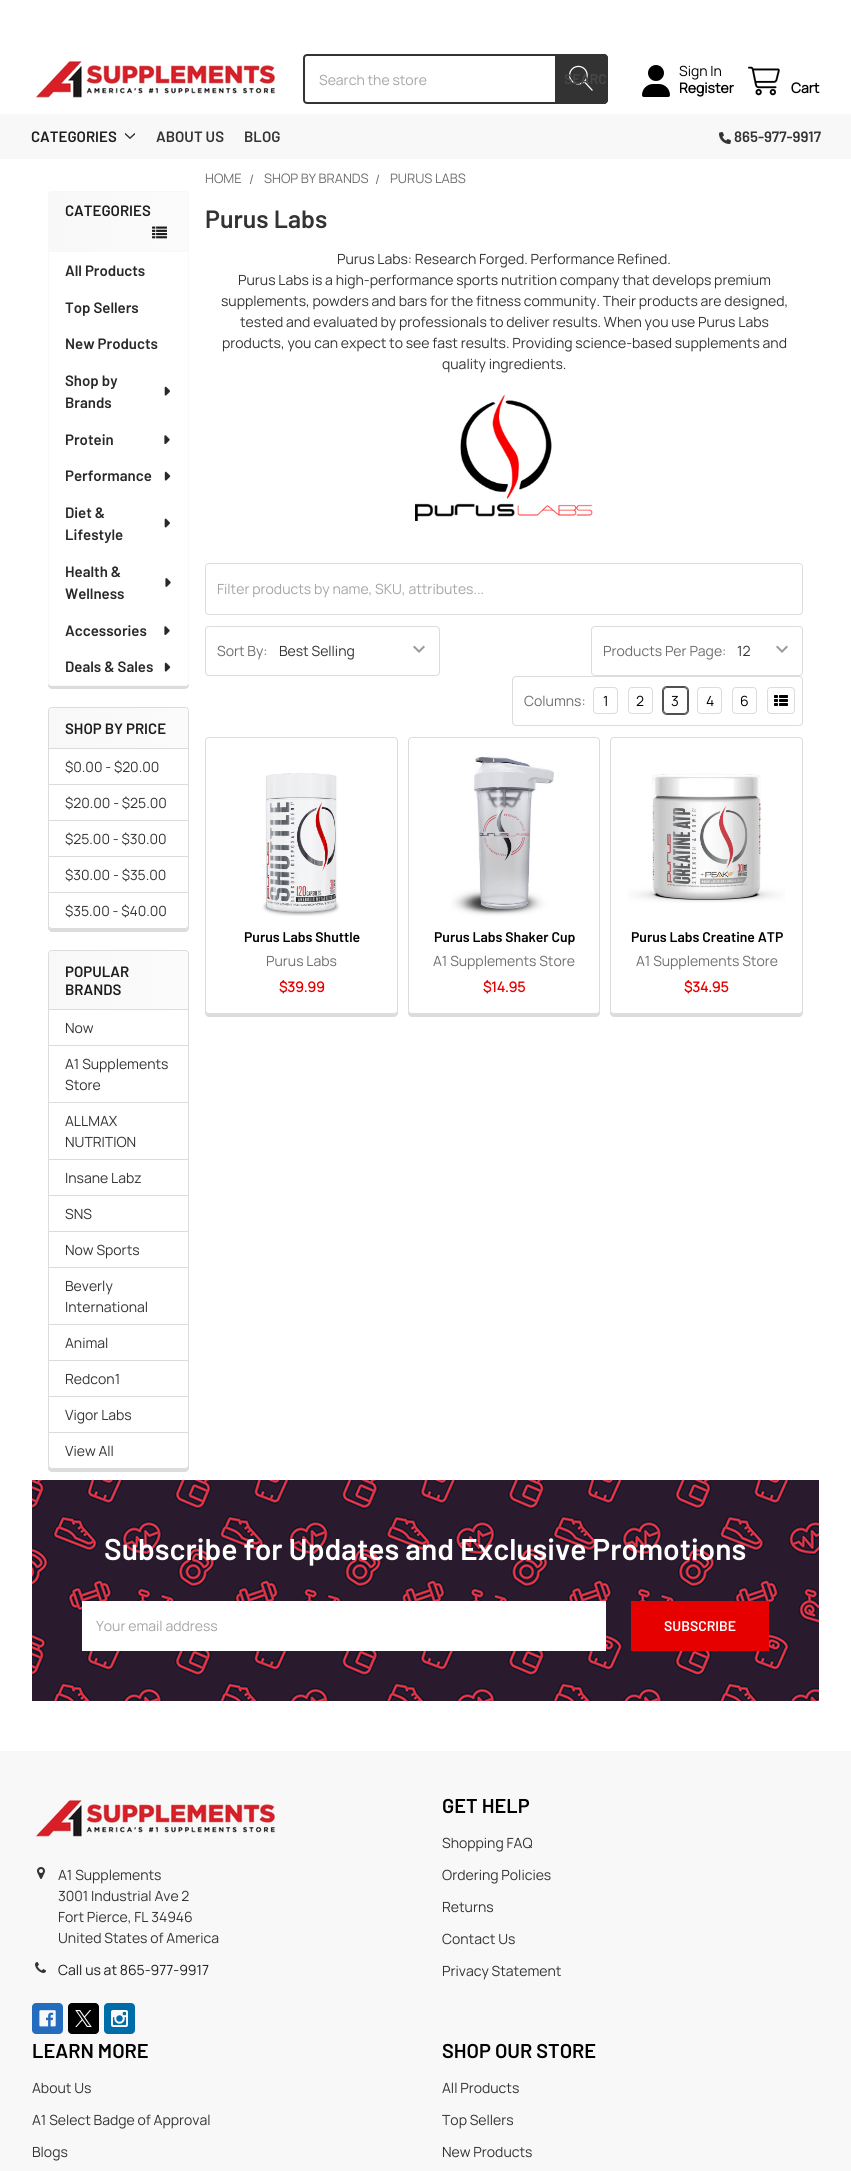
#include <cairo/cairo.h>
#include <math.h>
#include <stddef.h>


static void rounded_rect(cairo_t *cr, double x, double y, double w, double h, double r) {
  cairo_new_sub_path(cr);
  cairo_arc(cr, x + w - r, y + h - r, r, 0, M_PI / 2);
  cairo_arc(cr, x + r, y + h - r, r, M_PI / 2, M_PI);
  cairo_arc(cr, x + r, y + r, r, M_PI, 1.5 * M_PI);
  cairo_arc(cr, x + w - r, y + r, r, 1.5 * M_PI, 2 * M_PI);
  cairo_close_path(cr);
}

static void draw_image(cairo_t *cr, const char *path, double x, double y, double w, double h) {
  cairo_surface_t *image = cairo_image_surface_create_from_png(path);
  cairo_save(cr);
  cairo_set_source_surface(cr, image, x, y);
  cairo_rectangle(cr, x, y, w, h);
  cairo_fill(cr);
  cairo_restore(cr);
  cairo_surface_destroy(image);
}

static void draw(cairo_t *cr) {
  cairo_pattern_t *gradient;
  cairo_set_source_rgb(cr, 1, 1, 1);
  cairo_paint(cr);
  draw_image(cr, "images/1.png", 36, 61, 239, 37);
  rounded_rect(cr, 304, 55, 303, 48, 3);
  cairo_set_source_rgb(cr, 51 / 255.0, 51 / 255.0, 51 / 255.0);
  cairo_stroke(cr);
  cairo_new_path(cr);
  cairo_move_to(cr, 555, 54);
  cairo_line_to(cr, 604, 54);
  cairo_curve_to(cr, 606, 54, 608, 56, 608, 58);
  cairo_line_to(cr, 608, 100);
  cairo_curve_to(cr, 608, 102, 606, 104, 604, 104);
  cairo_line_to(cr, 555, 104);
  cairo_close_path(cr);
  cairo_fill(cr);
  draw_image(cr, "images/2.png", 569, 65, 24, 26);
  draw_image(cr, "images/3.png", 642, 65, 28, 32);
  draw_image(cr, "images/4.png", 748, 66, 32, 30);
  cairo_set_source_rgb(cr, 248 / 255.0, 248 / 255.0, 248 / 255.0);
  cairo_rectangle(cr, 0, 114, 851, 45);
  cairo_fill(cr);
  draw_image(cr, "images/5.png", 125, 133, 10, 6);
  draw_image(cr, "images/6.png", 719, 132, 12, 12);
  cairo_set_source_rgb(cr, 220 / 255.0, 220 / 255.0, 220 / 255.0);
  cairo_new_path(cr);
  cairo_move_to(cr, 48, 682);
  cairo_line_to(cr, 48, 685);
  cairo_curve_to(cr, 48, 687, 50, 689, 52, 689);
  cairo_line_to(cr, 185, 689);
  cairo_curve_to(cr, 187, 689, 189, 687, 189, 685);
  cairo_line_to(cr, 189, 682);
  cairo_curve_to(cr, 189, 684, 187, 686, 185, 686);
  cairo_line_to(cr, 52, 686);
  cairo_curve_to(cr, 50, 686, 48, 684, 48, 682);
  cairo_close_path(cr);
  cairo_fill(cr);
  cairo_set_source_rgb(cr, 1, 1, 1);
  rounded_rect(cr, 48, 191, 141, 495, 4);
  cairo_fill(cr);
  gradient = cairo_pattern_create_linear(48, 439, 189, 439);
  cairo_pattern_add_color_stop_rgba(gradient, 0, 248 / 255.0, 248 / 255.0, 248 / 255.0, 1);
  cairo_pattern_add_color_stop_rgba(gradient, 1, 248 / 255.0, 248 / 255.0, 248 / 255.0, 0.6);
  cairo_set_source(cr, gradient);
  cairo_pattern_destroy(gradient);
  rounded_rect(cr, 48, 191, 141, 495, 4);
  cairo_fill(cr);
  cairo_new_path(cr);
  cairo_move_to(cr, 52, 191.5);
  cairo_line_to(cr, 185, 191.5);
  cairo_curve_to(cr, 187, 191.5, 188.5, 193, 188.5, 195);
  cairo_line_to(cr, 188.5, 251.5);
  cairo_line_to(cr, 48.5, 251.5);
  cairo_line_to(cr, 48.5, 195);
  cairo_curve_to(cr, 48.5, 193, 50, 191.5, 52, 191.5);
  cairo_close_path(cr);
  cairo_set_source_rgb(cr, 248 / 255.0, 248 / 255.0, 248 / 255.0);
  cairo_set_line_width(cr, 1);
  cairo_stroke(cr);
  draw_image(cr, "images/7.png", 152, 226, 15, 13);
  cairo_set_source_rgb(cr, 1, 1, 1);
  cairo_new_path(cr);
  cairo_move_to(cr, 48, 252);
  cairo_line_to(cr, 189, 252);
  cairo_line_to(cr, 189, 682);
  cairo_curve_to(cr, 189, 684, 187, 686, 185, 686);
  cairo_line_to(cr, 52, 686);
  cairo_curve_to(cr, 50, 686, 48, 684, 48, 682);
  cairo_close_path(cr);
  cairo_fill(cr);
  cairo_set_source_rgb(cr, 248 / 255.0, 248 / 255.0, 248 / 255.0);
  cairo_set_fill_rule(cr, CAIRO_FILL_RULE_EVEN_ODD);
  cairo_new_path(cr);
  cairo_move_to(cr, 48, 252);
  cairo_line_to(cr, 189, 252);
  cairo_line_to(cr, 189, 682);
  cairo_curve_to(cr, 189, 684, 187, 686, 185, 686);
  cairo_line_to(cr, 52, 686);
  cairo_curve_to(cr, 50, 686, 48, 684, 48, 682);
  cairo_close_path(cr);
  cairo_move_to(cr, 49, 252);
  cairo_line_to(cr, 188, 252);
  cairo_line_to(cr, 188, 682);
  cairo_curve_to(cr, 188, 684, 187, 685, 185, 685);
  cairo_line_to(cr, 52, 685);
  cairo_curve_to(cr, 50, 685, 49, 684, 49, 682);
  cairo_close_path(cr);
  cairo_fill(cr);
  draw_image(cr, "images/8.png", 164, 386, 7, 10);
  draw_image(cr, "images/9.png", 164, 435, 6, 9);
  draw_image(cr, "images/10.png", 164, 471, 7, 10);
  draw_image(cr, "images/11.png", 164, 518, 6, 10);
  draw_image(cr, "images/12.png", 165, 578, 6, 9);
  draw_image(cr, "images/9.png", 164, 626, 6, 9);
  draw_image(cr, "images/10.png", 164, 662, 7, 10);
  cairo_set_source_rgb(cr, 220 / 255.0, 220 / 255.0, 220 / 255.0);
  cairo_set_fill_rule(cr, CAIRO_FILL_RULE_WINDING);
  cairo_new_path(cr);
  cairo_move_to(cr, 48, 925);
  cairo_line_to(cr, 48, 928);
  cairo_curve_to(cr, 48, 930, 50, 932, 52, 932);
  cairo_line_to(cr, 185, 932);
  cairo_curve_to(cr, 187, 932, 189, 930, 189, 928);
  cairo_line_to(cr, 189, 925);
  cairo_curve_to(cr, 189, 927, 187, 929, 185, 929);
  cairo_line_to(cr, 52, 929);
  cairo_curve_to(cr, 50, 929, 48, 927, 48, 925);
  cairo_close_path(cr);
  cairo_fill(cr);
  cairo_set_source_rgb(cr, 1, 1, 1);
  rounded_rect(cr, 48.5, 707.5, 140, 221, 3.5);
  cairo_fill_preserve(cr);
  cairo_set_source_rgb(cr, 220 / 255.0, 220 / 255.0, 220 / 255.0);
  cairo_stroke(cr);
  gradient = cairo_pattern_create_linear(49, 728, 188, 728);
  cairo_pattern_add_color_stop_rgba(gradient, 0, 248 / 255.0, 248 / 255.0, 248 / 255.0, 1);
  cairo_pattern_add_color_stop_rgba(gradient, 1, 248 / 255.0, 248 / 255.0, 248 / 255.0, 0.6);
  cairo_set_source(cr, gradient);
  cairo_pattern_destroy(gradient);
  cairo_new_path(cr);
  cairo_move_to(cr, 52, 708);
  cairo_line_to(cr, 185, 708);
  cairo_curve_to(cr, 186.5, 708, 188, 709.5, 188, 711);
  cairo_line_to(cr, 188, 749);
  cairo_line_to(cr, 49, 749);
  cairo_line_to(cr, 49, 711);
  cairo_curve_to(cr, 49, 709.5, 50.5, 708, 52, 708);
  cairo_close_path(cr);
  cairo_fill(cr);
  cairo_set_source_rgb(cr, 220 / 255.0, 220 / 255.0, 220 / 255.0);
  cairo_rectangle(cr, 49, 748, 139, 1);
  cairo_fill(cr);
  cairo_rectangle(cr, 49, 784, 139, 1);
  cairo_fill(cr);
  cairo_rectangle(cr, 49, 820, 139, 1);
  cairo_fill(cr);
  cairo_rectangle(cr, 49, 856, 139, 1);
  cairo_fill(cr);
  cairo_rectangle(cr, 49, 892, 139, 1);
  cairo_fill(cr);
  cairo_new_path(cr);
  cairo_move_to(cr, 48, 1465);
  cairo_line_to(cr, 48, 1468);
  cairo_curve_to(cr, 48, 1470, 50, 1472, 52, 1472);
  cairo_line_to(cr, 185, 1472);
  cairo_curve_to(cr, 187, 1472, 189, 1470, 189, 1468);
  cairo_line_to(cr, 189, 1465);
  cairo_curve_to(cr, 189, 1467, 187, 1469, 185, 1469);
  cairo_line_to(cr, 52, 1469);
  cairo_curve_to(cr, 50, 1469, 48, 1467, 48, 1465);
  cairo_close_path(cr);
  cairo_fill(cr);
  cairo_set_source_rgb(cr, 1, 1, 1);
  rounded_rect(cr, 48.5, 950.5, 140, 518, 3.5);
  cairo_fill_preserve(cr);
  cairo_set_source_rgb(cr, 220 / 255.0, 220 / 255.0, 220 / 255.0);
  cairo_stroke(cr);
  gradient = cairo_pattern_create_linear(49, 980, 188, 980);
  cairo_pattern_add_color_stop_rgba(gradient, 0, 248 / 255.0, 248 / 255.0, 248 / 255.0, 1);
  cairo_pattern_add_color_stop_rgba(gradient, 1, 248 / 255.0, 248 / 255.0, 248 / 255.0, 0.6);
  cairo_set_source(cr, gradient);
  cairo_pattern_destroy(gradient);
  cairo_new_path(cr);
  cairo_move_to(cr, 52, 951);
  cairo_line_to(cr, 185, 951);
  cairo_curve_to(cr, 186.5, 951, 188, 952.5, 188, 954);
  cairo_line_to(cr, 188, 1010);
  cairo_line_to(cr, 49, 1010);
  cairo_line_to(cr, 49, 954);
  cairo_curve_to(cr, 49, 952.5, 50.5, 951, 52, 951);
  cairo_close_path(cr);
  cairo_fill(cr);
  cairo_set_source_rgb(cr, 220 / 255.0, 220 / 255.0, 220 / 255.0);
  cairo_rectangle(cr, 49, 1009, 139, 1);
  cairo_fill(cr);
  cairo_rectangle(cr, 49, 1045, 139, 1);
  cairo_fill(cr);
  cairo_rectangle(cr, 49, 1102, 139, 1);
  cairo_fill(cr);
  cairo_rectangle(cr, 49, 1159, 139, 1);
  cairo_fill(cr);
  cairo_rectangle(cr, 49, 1195, 139, 1);
  cairo_fill(cr);
  cairo_rectangle(cr, 49, 1231, 139, 1);
  cairo_fill(cr);
  cairo_rectangle(cr, 49, 1267, 139, 1);
  cairo_fill(cr);
  cairo_rectangle(cr, 49, 1324, 139, 1);
  cairo_fill(cr);
  cairo_rectangle(cr, 49, 1360, 139, 1);
  cairo_fill(cr);
  cairo_rectangle(cr, 49, 1396, 139, 1);
  cairo_fill(cr);
  cairo_rectangle(cr, 49, 1432, 139, 1);
  cairo_fill(cr);
  draw_image(cr, "images/13.png", 415, 395, 178, 126);
  rounded_rect(cr, 205.5, 563.5, 597, 51, 3.5);
  cairo_stroke(cr);
  rounded_rect(cr, 205.5, 626.5, 234, 49, 3.5);
  cairo_stroke(cr);
  draw_image(cr, "images/14.png", 413, 645, 12, 8);
  rounded_rect(cr, 591.5, 626.5, 211, 49, 3.5);
  cairo_stroke(cr);
  draw_image(cr, "images/14.png", 776, 645, 12, 8);
  rounded_rect(cr, 512.5, 676.5, 290, 49, 3.5);
  cairo_stroke(cr);
  rounded_rect(cr, 593.5, 687.5, 24, 26, 3.5);
  cairo_stroke(cr);
  rounded_rect(cr, 628.5, 687.5, 24, 26, 3.5);
  cairo_stroke(cr);
  rounded_rect(cr, 662.5, 686.5, 26, 28, 4.5);
  cairo_set_source_rgb(cr, 79 / 255.0, 79 / 255.0, 79 / 255.0);
  cairo_stroke(cr);
  rounded_rect(cr, 663.5, 687.5, 24, 26, 3.5);
  cairo_stroke(cr);
  rounded_rect(cr, 697.5, 687.5, 24, 26, 3.5);
  cairo_set_source_rgb(cr, 220 / 255.0, 220 / 255.0, 220 / 255.0);
  cairo_stroke(cr);
  rounded_rect(cr, 732.5, 687.5, 24, 26, 3.5);
  cairo_stroke(cr);
  rounded_rect(cr, 767.5, 687.5, 27, 26, 3.5);
  cairo_stroke(cr);
  draw_image(cr, "images/15.png", 774, 695, 14, 11);
  cairo_new_path(cr);
  cairo_move_to(cr, 205, 1010);
  cairo_line_to(cr, 205, 1013);
  cairo_curve_to(cr, 205, 1015, 207, 1017, 209, 1017);
  cairo_line_to(cr, 394, 1017);
  cairo_curve_to(cr, 396, 1017, 398, 1015, 398, 1013);
  cairo_line_to(cr, 398, 1010);
  cairo_curve_to(cr, 398, 1012, 396, 1014, 394, 1014);
  cairo_line_to(cr, 209, 1014);
  cairo_curve_to(cr, 207, 1014, 205, 1012, 205, 1010);
  cairo_close_path(cr);
  cairo_fill(cr);
  cairo_set_source_rgb(cr, 1, 1, 1);
  rounded_rect(cr, 205.5, 737.5, 192, 276, 3.5);
  cairo_fill_preserve(cr);
  cairo_set_source_rgb(cr, 220 / 255.0, 220 / 255.0, 220 / 255.0);
  cairo_stroke(cr);
  draw_image(cr, "images/16.png", 262, 773, 78, 143);
  cairo_new_path(cr);
  cairo_move_to(cr, 408, 1010);
  cairo_line_to(cr, 408, 1013);
  cairo_curve_to(cr, 408, 1015, 410, 1017, 412, 1017);
  cairo_line_to(cr, 596, 1017);
  cairo_curve_to(cr, 598, 1017, 600, 1015, 600, 1013);
  cairo_line_to(cr, 600, 1010);
  cairo_curve_to(cr, 600, 1012, 598, 1014, 596, 1014);
  cairo_line_to(cr, 412, 1014);
  cairo_curve_to(cr, 410, 1014, 408, 1012, 408, 1010);
  cairo_close_path(cr);
  cairo_fill(cr);
  cairo_set_source_rgb(cr, 1, 1, 1);
  rounded_rect(cr, 408.5, 737.5, 191, 276, 3.5);
  cairo_fill_preserve(cr);
  cairo_set_source_rgb(cr, 220 / 255.0, 220 / 255.0, 220 / 255.0);
  cairo_stroke(cr);
  draw_image(cr, "images/17.png", 451, 756, 103, 160);
  cairo_new_path(cr);
  cairo_move_to(cr, 610, 1010);
  cairo_line_to(cr, 610, 1013);
  cairo_curve_to(cr, 610, 1015, 612, 1017, 614, 1017);
  cairo_line_to(cr, 799, 1017);
  cairo_curve_to(cr, 801, 1017, 803, 1015, 803, 1013);
  cairo_line_to(cr, 803, 1010);
  cairo_curve_to(cr, 803, 1012, 801, 1014, 799, 1014);
  cairo_line_to(cr, 614, 1014);
  cairo_curve_to(cr, 612, 1014, 610, 1012, 610, 1010);
  cairo_close_path(cr);
  cairo_fill(cr);
  cairo_set_source_rgb(cr, 1, 1, 1);
  rounded_rect(cr, 610.5, 737.5, 192, 276, 3.5);
  cairo_fill_preserve(cr);
  cairo_set_source_rgb(cr, 220 / 255.0, 220 / 255.0, 220 / 255.0);
  cairo_stroke(cr);
  draw_image(cr, "images/18.png", 628, 773, 157, 130);
  cairo_set_source_rgb(cr, 248 / 255.0, 248 / 255.0, 248 / 255.0);
  cairo_rectangle(cr, 0, 1751, 851, 420);
  cairo_fill(cr);
  draw_image(cr, "images/19.png", 32, 1480, 787, 221);
  cairo_set_source_rgb(cr, 1, 1, 1);
  cairo_rectangle(cr, 82, 1601, 524, 50);
  cairo_fill(cr);
  cairo_set_source_rgb(cr, 231 / 255.0, 0, 0);
  cairo_rectangle(cr, 631, 1601, 138, 50);
  cairo_fill(cr);
  draw_image(cr, "images/20.png", 36, 1800, 239, 37);
  draw_image(cr, "images/21.png", 37, 1867, 8, 12);
  draw_image(cr, "images/22.png", 35, 1962, 11, 11);
  cairo_set_source_rgb(cr, 35 / 255.0, 108 / 255.0, 190 / 255.0);
  rounded_rect(cr, 32, 2003, 31, 31, 4);
  cairo_fill(cr);
  draw_image(cr, "images/23.png", 39, 2010, 17, 17);
  cairo_set_source_rgb(cr, 0, 0, 0);
  rounded_rect(cr, 68, 2003, 31, 31, 4);
  cairo_fill(cr);
  draw_image(cr, "images/24.png", 75, 2010, 17, 17);
  cairo_set_source_rgb(cr, 0, 109 / 255.0, 171 / 255.0);
  rounded_rect(cr, 104, 2003, 31, 31, 4);
  cairo_fill(cr);
  draw_image(cr, "images/25.png", 111, 2010, 17, 17);
  cairo_select_font_face(cr, "Manrope ExtraLight", CAIRO_FONT_SLANT_NORMAL, CAIRO_FONT_WEIGHT_NORMAL);
  cairo_set_font_size(cr, 14);
  cairo_set_source_rgb(cr, 165 / 255.0, 165 / 255.0, 165 / 255.0);
  cairo_move_to(cr, 319, 85);
  cairo_show_text(cr, "Search the store");
  cairo_select_font_face(cr, "Barlow SemiBold", CAIRO_FONT_SLANT_NORMAL, CAIRO_FONT_WEIGHT_NORMAL);
  cairo_set_source_rgb(cr, 72 / 255.0, 72 / 255.0, 72 / 255.0);
  cairo_move_to(cr, 564, 84);
  cairo_show_text(cr, "SEARC");
  cairo_select_font_face(cr, "Manrope ExtraLight", CAIRO_FONT_SLANT_NORMAL, CAIRO_FONT_WEIGHT_NORMAL);
  cairo_set_source_rgb(cr, 0, 0, 0);
  cairo_move_to(cr, 679, 76);
  cairo_show_text(cr, "Sign In");
  cairo_select_font_face(cr, "Manrope", CAIRO_FONT_SLANT_NORMAL, CAIRO_FONT_WEIGHT_BOLD);
  cairo_move_to(cr, 679, 93);
  cairo_show_text(cr, "Register");
  cairo_move_to(cr, 791, 93);
  cairo_show_text(cr, "Cart");
  cairo_select_font_face(cr, "Barlow SemiBold", CAIRO_FONT_SLANT_NORMAL, CAIRO_FONT_WEIGHT_NORMAL);
  cairo_set_font_size(cr, 15);
  cairo_set_source_rgb(cr, 29 / 255.0, 29 / 255.0, 29 / 255.0);
  cairo_move_to(cr, 31, 142);
  cairo_show_text(cr, "CATEGORIES");
  cairo_set_source_rgb(cr, 51 / 255.0, 51 / 255.0, 51 / 255.0);
  cairo_move_to(cr, 156, 142);
  cairo_show_text(cr, "ABOUT US");
  cairo_move_to(cr, 244, 142);
  cairo_show_text(cr, "BLOG");
  cairo_move_to(cr, 734, 142);
  cairo_show_text(cr, "865-977-9917");
  cairo_set_source_rgb(cr, 29 / 255.0, 29 / 255.0, 29 / 255.0);
  cairo_move_to(cr, 65, 216);
  cairo_show_text(cr, "CATEGORIES");
  cairo_set_source_rgb(cr, 40 / 255.0, 40 / 255.0, 40 / 255.0);
  cairo_move_to(cr, 65, 276);
  cairo_show_text(cr, "All Products");
  cairo_move_to(cr, 65, 313);
  cairo_show_text(cr, "Top Sellers");
  cairo_move_to(cr, 65, 349);
  cairo_show_text(cr, "New Products");
  cairo_move_to(cr, 65, 386);
  cairo_show_text(cr, "Shop by");
  cairo_move_to(cr, 65, 408);
  cairo_show_text(cr, "Brands");
  cairo_move_to(cr, 65, 445);
  cairo_show_text(cr, "Protein");
  cairo_move_to(cr, 65, 481);
  cairo_show_text(cr, "Performance");
  cairo_move_to(cr, 65, 518);
  cairo_show_text(cr, "Diet &");
  cairo_move_to(cr, 65, 540);
  cairo_show_text(cr, "Lifestyle");
  cairo_move_to(cr, 65, 577);
  cairo_show_text(cr, "Health &");
  cairo_move_to(cr, 65, 599);
  cairo_show_text(cr, "Wellness");
  cairo_move_to(cr, 65, 636);
  cairo_show_text(cr, "Accessories");
  cairo_move_to(cr, 65, 672);
  cairo_show_text(cr, "Deals & Sales");
  cairo_set_source_rgb(cr, 29 / 255.0, 29 / 255.0, 29 / 255.0);
  cairo_move_to(cr, 65, 734);
  cairo_show_text(cr, "SHOP BY PRICE");
  cairo_select_font_face(cr, "Manrope ExtraLight", CAIRO_FONT_SLANT_NORMAL, CAIRO_FONT_WEIGHT_NORMAL);
  cairo_set_font_size(cr, 14);
  cairo_set_source_rgb(cr, 51 / 255.0, 51 / 255.0, 51 / 255.0);
  cairo_move_to(cr, 65, 772);
  cairo_show_text(cr, "$0.00 - $20.00");
  cairo_move_to(cr, 65, 808);
  cairo_show_text(cr, "$20.00 - $25.00");
  cairo_move_to(cr, 65, 844);
  cairo_show_text(cr, "$25.00 - $30.00");
  cairo_move_to(cr, 65, 880);
  cairo_show_text(cr, "$30.00 - $35.00");
  cairo_move_to(cr, 65, 916);
  cairo_show_text(cr, "$35.00 - $40.00");
  cairo_select_font_face(cr, "Barlow SemiBold", CAIRO_FONT_SLANT_NORMAL, CAIRO_FONT_WEIGHT_NORMAL);
  cairo_set_font_size(cr, 15);
  cairo_set_source_rgb(cr, 29 / 255.0, 29 / 255.0, 29 / 255.0);
  cairo_move_to(cr, 65, 977);
  cairo_show_text(cr, "POPULAR");
  cairo_move_to(cr, 65, 995);
  cairo_show_text(cr, "BRANDS");
  cairo_select_font_face(cr, "Manrope ExtraLight", CAIRO_FONT_SLANT_NORMAL, CAIRO_FONT_WEIGHT_NORMAL);
  cairo_set_font_size(cr, 14);
  cairo_set_source_rgb(cr, 51 / 255.0, 51 / 255.0, 51 / 255.0);
  cairo_move_to(cr, 65, 1033);
  cairo_show_text(cr, "Now");
  cairo_move_to(cr, 65, 1069);
  cairo_show_text(cr, "A1 Supplements");
  cairo_move_to(cr, 65, 1090);
  cairo_show_text(cr, "Store");
  cairo_move_to(cr, 65, 1126);
  cairo_show_text(cr, "ALLMAX");
  cairo_move_to(cr, 65, 1147);
  cairo_show_text(cr, "NUTRITION");
  cairo_move_to(cr, 65, 1183);
  cairo_show_text(cr, "Insane Labz");
  cairo_move_to(cr, 65, 1219);
  cairo_show_text(cr, "SNS");
  cairo_move_to(cr, 65, 1255);
  cairo_show_text(cr, "Now Sports");
  cairo_move_to(cr, 65, 1291);
  cairo_show_text(cr, "Beverly");
  cairo_move_to(cr, 65, 1312);
  cairo_show_text(cr, "International");
  cairo_move_to(cr, 65, 1348);
  cairo_show_text(cr, "Animal");
  cairo_move_to(cr, 65, 1384);
  cairo_show_text(cr, "Redcon1");
  cairo_move_to(cr, 65, 1420);
  cairo_show_text(cr, "Vigor Labs");
  cairo_move_to(cr, 65, 1456);
  cairo_show_text(cr, "View All");
  cairo_set_font_size(cr, 13);
  cairo_set_source_rgb(cr, 110 / 255.0, 110 / 255.0, 110 / 255.0);
  cairo_move_to(cr, 205, 183);
  cairo_show_text(cr, "HOME");
  cairo_move_to(cr, 249, 184);
  cairo_show_text(cr, "/");
  cairo_move_to(cr, 264, 183);
  cairo_show_text(cr, "SHOP BY BRANDS");
  cairo_move_to(cr, 375, 184);
  cairo_show_text(cr, "/");
  cairo_move_to(cr, 390, 183);
  cairo_show_text(cr, "PURUS LABS");
  cairo_select_font_face(cr, "Barlow SemiBold", CAIRO_FONT_SLANT_NORMAL, CAIRO_FONT_WEIGHT_NORMAL);
  cairo_set_font_size(cr, 25);
  cairo_set_source_rgb(cr, 51 / 255.0, 51 / 255.0, 51 / 255.0);
  cairo_move_to(cr, 205, 228);
  cairo_show_text(cr, "Purus Labs");
  cairo_select_font_face(cr, "Manrope ExtraLight", CAIRO_FONT_SLANT_NORMAL, CAIRO_FONT_WEIGHT_NORMAL);
  cairo_set_font_size(cr, 14);
  cairo_move_to(cr, 337, 264);
  cairo_show_text(cr, "Purus Labs: Research Forged. Performance Refined.");
  cairo_move_to(cr, 238, 285);
  cairo_show_text(cr, "Purus Labs is a high-performance sports nutrition company that develops premium");
  cairo_move_to(cr, 221, 306);
  cairo_show_text(cr, "supplements, powders and bars for the fitness community. Their products are designed,");
  cairo_move_to(cr, 240, 327);
  cairo_show_text(cr, "tested and evaluated by professionals to deliver results. When you use Purus Labs");
  cairo_move_to(cr, 222, 348);
  cairo_show_text(cr, "products, you can expect to see fast results. Providing science-based supplements and");
  cairo_move_to(cr, 442, 369);
  cairo_show_text(cr, "quality ingredients.");
  cairo_set_source_rgb(cr, 165 / 255.0, 165 / 255.0, 165 / 255.0);
  cairo_move_to(cr, 217, 594);
  cairo_show_text(cr, "Filter products by name, SKU, attributes...");
  cairo_set_source_rgb(cr, 110 / 255.0, 110 / 255.0, 110 / 255.0);
  cairo_move_to(cr, 217, 656);
  cairo_show_text(cr, "Sort By:");
  cairo_set_source_rgb(cr, 51 / 255.0, 51 / 255.0, 51 / 255.0);
  cairo_move_to(cr, 279, 656);
  cairo_show_text(cr, "Best Selling");
  cairo_set_source_rgb(cr, 110 / 255.0, 110 / 255.0, 110 / 255.0);
  cairo_move_to(cr, 603, 656);
  cairo_show_text(cr, "Products Per Page:");
  cairo_set_source_rgb(cr, 51 / 255.0, 51 / 255.0, 51 / 255.0);
  cairo_move_to(cr, 737, 656);
  cairo_show_text(cr, "12");
  cairo_set_source_rgb(cr, 110 / 255.0, 110 / 255.0, 110 / 255.0);
  cairo_move_to(cr, 524, 706);
  cairo_show_text(cr, "Columns:");
  cairo_set_source_rgb(cr, 0, 0, 0);
  cairo_move_to(cr, 603, 706);
  cairo_show_text(cr, "1");
  cairo_move_to(cr, 636, 706);
  cairo_show_text(cr, "2");
  cairo_move_to(cr, 671, 706);
  cairo_show_text(cr, "3");
  cairo_move_to(cr, 706, 706);
  cairo_show_text(cr, "4");
  cairo_move_to(cr, 740, 706);
  cairo_show_text(cr, "6");
  cairo_select_font_face(cr, "Barlow SemiBold", CAIRO_FONT_SLANT_NORMAL, CAIRO_FONT_WEIGHT_NORMAL);
  cairo_move_to(cr, 244, 942);
  cairo_show_text(cr, "Purus Labs Shuttle");
  cairo_select_font_face(cr, "Manrope ExtraLight", CAIRO_FONT_SLANT_NORMAL, CAIRO_FONT_WEIGHT_NORMAL);
  cairo_set_source_rgb(cr, 110 / 255.0, 110 / 255.0, 110 / 255.0);
  cairo_move_to(cr, 266, 966);
  cairo_show_text(cr, "Purus Labs");
  cairo_select_font_face(cr, "Manrope", CAIRO_FONT_SLANT_NORMAL, CAIRO_FONT_WEIGHT_BOLD);
  cairo_set_source_rgb(cr, 231 / 255.0, 0, 0);
  cairo_move_to(cr, 279, 992);
  cairo_show_text(cr, "$39.99");
  cairo_select_font_face(cr, "Barlow SemiBold", CAIRO_FONT_SLANT_NORMAL, CAIRO_FONT_WEIGHT_NORMAL);
  cairo_set_source_rgb(cr, 0, 0, 0);
  cairo_move_to(cr, 434, 942);
  cairo_show_text(cr, "Purus Labs Shaker Cup");
  cairo_select_font_face(cr, "Manrope ExtraLight", CAIRO_FONT_SLANT_NORMAL, CAIRO_FONT_WEIGHT_NORMAL);
  cairo_set_source_rgb(cr, 110 / 255.0, 110 / 255.0, 110 / 255.0);
  cairo_move_to(cr, 433, 966);
  cairo_show_text(cr, "A1 Supplements Store");
  cairo_select_font_face(cr, "Manrope", CAIRO_FONT_SLANT_NORMAL, CAIRO_FONT_WEIGHT_BOLD);
  cairo_set_source_rgb(cr, 231 / 255.0, 0, 0);
  cairo_move_to(cr, 483, 992);
  cairo_show_text(cr, "$14.95");
  cairo_select_font_face(cr, "Barlow SemiBold", CAIRO_FONT_SLANT_NORMAL, CAIRO_FONT_WEIGHT_NORMAL);
  cairo_set_source_rgb(cr, 0, 0, 0);
  cairo_move_to(cr, 631, 942);
  cairo_show_text(cr, "Purus Labs Creatine ATP");
  cairo_select_font_face(cr, "Manrope ExtraLight", CAIRO_FONT_SLANT_NORMAL, CAIRO_FONT_WEIGHT_NORMAL);
  cairo_set_source_rgb(cr, 110 / 255.0, 110 / 255.0, 110 / 255.0);
  cairo_move_to(cr, 636, 966);
  cairo_show_text(cr, "A1 Supplements Store");
  cairo_select_font_face(cr, "Manrope", CAIRO_FONT_SLANT_NORMAL, CAIRO_FONT_WEIGHT_BOLD);
  cairo_set_source_rgb(cr, 231 / 255.0, 0, 0);
  cairo_move_to(cr, 684, 992);
  cairo_show_text(cr, "$34.95");
  cairo_select_font_face(cr, "Barlow SemiBold", CAIRO_FONT_SLANT_NORMAL, CAIRO_FONT_WEIGHT_NORMAL);
  cairo_set_font_size(cr, 30);
  cairo_set_source_rgb(cr, 1, 1, 1);
  cairo_move_to(cr, 104, 1560);
  cairo_show_text(cr, "Subscribe for Updates and Exclusive Promotions");
  cairo_select_font_face(cr, "Manrope ExtraLight", CAIRO_FONT_SLANT_NORMAL, CAIRO_FONT_WEIGHT_NORMAL);
  cairo_set_font_size(cr, 14);
  cairo_set_source_rgb(cr, 165 / 255.0, 165 / 255.0, 165 / 255.0);
  cairo_move_to(cr, 96, 1631);
  cairo_show_text(cr, "Your email address");
  cairo_select_font_face(cr, "Barlow SemiBold", CAIRO_FONT_SLANT_NORMAL, CAIRO_FONT_WEIGHT_NORMAL);
  cairo_set_source_rgb(cr, 1, 1, 1);
  cairo_move_to(cr, 664, 1631);
  cairo_show_text(cr, "SUBSCRIBE");
  cairo_select_font_face(cr, "Manrope ExtraLight", CAIRO_FONT_SLANT_NORMAL, CAIRO_FONT_WEIGHT_NORMAL);
  cairo_set_source_rgb(cr, 51 / 255.0, 51 / 255.0, 51 / 255.0);
  cairo_move_to(cr, 58, 1880);
  cairo_show_text(cr, "A1 Supplements");
  cairo_move_to(cr, 58, 1901);
  cairo_show_text(cr, "3001 Industrial Ave 2");
  cairo_move_to(cr, 58, 1922);
  cairo_show_text(cr, "Fort Pierce, FL 34946");
  cairo_move_to(cr, 58, 1943);
  cairo_show_text(cr, "United States of America");
  cairo_set_source_rgb(cr, 29 / 255.0, 29 / 255.0, 29 / 255.0);
  cairo_move_to(cr, 58, 1975);
  cairo_show_text(cr, "Call us at 865-977-9917");
  cairo_select_font_face(cr, "Barlow SemiBold", CAIRO_FONT_SLANT_NORMAL, CAIRO_FONT_WEIGHT_NORMAL);
  cairo_set_font_size(cr, 20);
  cairo_set_source_rgb(cr, 0, 0, 0);
  cairo_move_to(cr, 442, 1813);
  cairo_show_text(cr, "GET HELP");
  cairo_select_font_face(cr, "Manrope ExtraLight", CAIRO_FONT_SLANT_NORMAL, CAIRO_FONT_WEIGHT_NORMAL);
  cairo_set_font_size(cr, 14);
  cairo_set_source_rgb(cr, 51 / 255.0, 51 / 255.0, 51 / 255.0);
  cairo_move_to(cr, 442, 1848);
  cairo_show_text(cr, "Shopping FAQ");
  cairo_move_to(cr, 442, 1880);
  cairo_show_text(cr, "Ordering Policies");
  cairo_move_to(cr, 442, 1912);
  cairo_show_text(cr, "Returns");
  cairo_move_to(cr, 442, 1944);
  cairo_show_text(cr, "Contact Us");
  cairo_move_to(cr, 442, 1976);
  cairo_show_text(cr, "Privacy Statement");
  cairo_select_font_face(cr, "Barlow SemiBold", CAIRO_FONT_SLANT_NORMAL, CAIRO_FONT_WEIGHT_NORMAL);
  cairo_set_font_size(cr, 20);
  cairo_set_source_rgb(cr, 0, 0, 0);
  cairo_move_to(cr, 32, 2058);
  cairo_show_text(cr, "LEARN MORE");
  cairo_select_font_face(cr, "Manrope ExtraLight", CAIRO_FONT_SLANT_NORMAL, CAIRO_FONT_WEIGHT_NORMAL);
  cairo_set_font_size(cr, 14);
  cairo_set_source_rgb(cr, 51 / 255.0, 51 / 255.0, 51 / 255.0);
  cairo_move_to(cr, 32, 2093);
  cairo_show_text(cr, "About Us");
  cairo_move_to(cr, 32, 2125);
  cairo_show_text(cr, "A1 Select Badge of Approval");
  cairo_move_to(cr, 32, 2157);
  cairo_show_text(cr, "Blogs");
  cairo_select_font_face(cr, "Barlow SemiBold", CAIRO_FONT_SLANT_NORMAL, CAIRO_FONT_WEIGHT_NORMAL);
  cairo_set_font_size(cr, 20);
  cairo_set_source_rgb(cr, 0, 0, 0);
  cairo_move_to(cr, 442, 2058);
  cairo_show_text(cr, "SHOP OUR STORE");
  cairo_select_font_face(cr, "Manrope ExtraLight", CAIRO_FONT_SLANT_NORMAL, CAIRO_FONT_WEIGHT_NORMAL);
  cairo_set_font_size(cr, 14);
  cairo_set_source_rgb(cr, 51 / 255.0, 51 / 255.0, 51 / 255.0);
  cairo_move_to(cr, 442, 2093);
  cairo_show_text(cr, "All Products");
  cairo_move_to(cr, 442, 2125);
  cairo_show_text(cr, "Top Sellers");
  cairo_move_to(cr, 442, 2157);
  cairo_show_text(cr, "New Products");
}

int main(void) {
  cairo_surface_t *surface = cairo_image_surface_create(CAIRO_FORMAT_RGB24, 851, 2171);
  cairo_t *cr = cairo_create(surface);
  cairo_font_options_t *options = cairo_font_options_create();
  cairo_font_options_set_hint_metrics(options, CAIRO_HINT_METRICS_OFF);
  cairo_font_options_set_hint_style(options, CAIRO_HINT_STYLE_NONE);
  cairo_set_font_options(cr, options);
  cairo_set_miter_limit(cr, 4);
  draw(cr);
  cairo_surface_write_to_png(surface, "out.png");
  cairo_font_options_destroy(options);
  cairo_destroy(cr);
  cairo_surface_destroy(surface);
  return 0;
}
